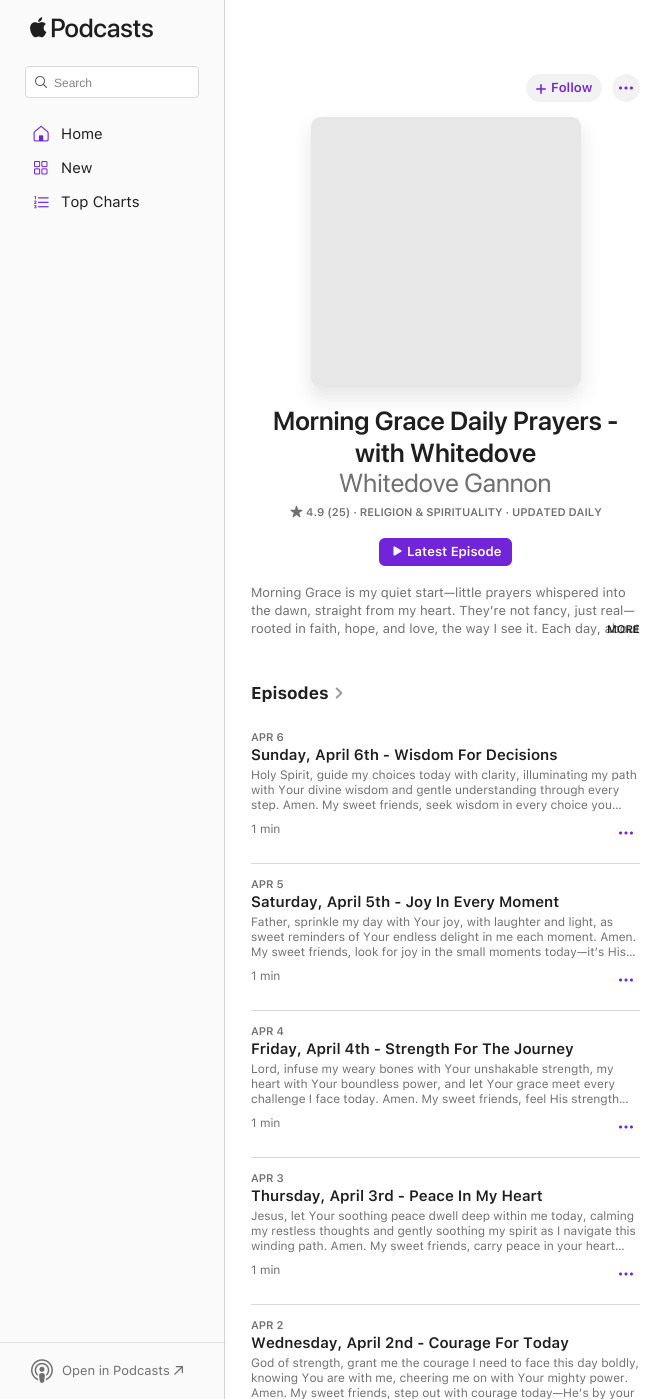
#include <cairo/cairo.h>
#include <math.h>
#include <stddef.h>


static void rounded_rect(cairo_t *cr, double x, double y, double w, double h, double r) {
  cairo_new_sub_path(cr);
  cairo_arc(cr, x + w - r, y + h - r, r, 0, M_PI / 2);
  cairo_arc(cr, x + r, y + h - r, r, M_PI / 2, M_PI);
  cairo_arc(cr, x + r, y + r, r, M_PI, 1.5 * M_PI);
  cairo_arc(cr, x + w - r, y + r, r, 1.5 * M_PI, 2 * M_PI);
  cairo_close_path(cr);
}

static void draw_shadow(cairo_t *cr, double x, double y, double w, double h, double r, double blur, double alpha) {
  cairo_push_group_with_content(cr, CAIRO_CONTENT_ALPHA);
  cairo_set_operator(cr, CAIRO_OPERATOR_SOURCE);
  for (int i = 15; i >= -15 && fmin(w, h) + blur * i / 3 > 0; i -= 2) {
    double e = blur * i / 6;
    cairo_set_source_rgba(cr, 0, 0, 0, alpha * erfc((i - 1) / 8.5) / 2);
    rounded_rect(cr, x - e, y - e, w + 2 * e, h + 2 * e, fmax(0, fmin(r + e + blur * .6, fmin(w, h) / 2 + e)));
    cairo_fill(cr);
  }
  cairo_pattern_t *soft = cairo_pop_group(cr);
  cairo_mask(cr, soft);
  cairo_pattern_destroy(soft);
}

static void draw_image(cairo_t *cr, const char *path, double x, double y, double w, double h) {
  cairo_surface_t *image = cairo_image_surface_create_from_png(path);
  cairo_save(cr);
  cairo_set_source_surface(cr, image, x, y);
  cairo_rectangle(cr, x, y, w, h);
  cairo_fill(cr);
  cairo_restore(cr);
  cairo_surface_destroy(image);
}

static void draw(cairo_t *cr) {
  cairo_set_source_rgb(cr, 1, 1, 1);
  cairo_paint(cr);
  cairo_set_source_rgb(cr, 250 / 255.0, 250 / 255.0, 250 / 255.0);
  cairo_rectangle(cr, 0, 0, 224, 1399);
  cairo_fill(cr);
  cairo_set_source_rgb(cr, 225 / 255.0, 225 / 255.0, 225 / 255.0);
  cairo_rectangle(cr, 0, 1342, 225, 1);
  cairo_fill(cr);
  cairo_set_source_rgb(cr, 213 / 255.0, 213 / 255.0, 213 / 255.0);
  cairo_rectangle(cr, 224, 0, 1, 1399);
  cairo_fill(cr);
  cairo_set_source_rgb(cr, 192 / 255.0, 192 / 255.0, 192 / 255.0);
  cairo_rectangle(cr, 224, 1342, 1, 1);
  cairo_fill(cr);
  draw_image(cr, "images/1.png", 30, 17, 123, 21);
  cairo_set_source_rgb(cr, 1, 1, 1);
  rounded_rect(cr, 25.5, 66.5, 173, 31, 3.5);
  cairo_fill_preserve(cr);
  cairo_set_source_rgb(cr, 217 / 255.0, 217 / 255.0, 217 / 255.0);
  cairo_set_line_width(cr, 1);
  cairo_stroke(cr);
  draw_image(cr, "images/2.png", 35, 76, 12, 12);
  draw_image(cr, "images/3.png", 33, 126, 16, 16);
  draw_image(cr, "images/4.png", 34, 161, 14, 14);
  draw_image(cr, "images/5.png", 34, 196, 15, 13);
  draw_image(cr, "images/6.png", 31, 1359, 22, 24);
  draw_image(cr, "images/7.png", 174, 1366, 9, 9);
  cairo_set_source_rgb(cr, 242 / 255.0, 242 / 255.0, 242 / 255.0);
  rounded_rect(cr, 526, 74, 76, 28, 14);
  cairo_fill(cr);
  draw_image(cr, "images/8.png", 536, 84, 10, 10);
  draw_image(cr, "images/9.png", 612, 74, 28, 28);
  cairo_set_source_rgb(cr, 0, 0, 0);
  draw_shadow(cr, 311, 127, 270, 270, 10, 10, 0.1);
  cairo_set_source_rgb(cr, 243 / 255.0, 243 / 255.0, 244 / 255.0);
  rounded_rect(cr, 311, 117, 270, 270, 10);
  cairo_fill(cr);
  cairo_set_source_rgba(cr, 128 / 255.0, 128 / 255.0, 128 / 255.0, 0.1);
  cairo_new_path(cr);
  cairo_move_to(cr, 321, 117);
  cairo_line_to(cr, 571, 117);
  cairo_curve_to(cr, 577, 117, 581, 121, 581, 127);
  cairo_line_to(cr, 581, 377);
  cairo_curve_to(cr, 581, 383, 577, 387, 571, 387);
  cairo_line_to(cr, 321, 387);
  cairo_curve_to(cr, 315, 387, 311, 383, 311, 377);
  cairo_line_to(cr, 311, 127);
  cairo_curve_to(cr, 311, 121, 315, 117, 321, 117);
  cairo_close_path(cr);
  cairo_fill(cr);
  draw_image(cr, "images/10.png", 290, 505, 13, 13);
  cairo_set_source_rgb(cr, 114 / 255.0, 36 / 255.0, 216 / 255.0);
  rounded_rect(cr, 379, 538, 133, 28, 6);
  cairo_fill(cr);
  draw_image(cr, "images/11.png", 393, 546, 9, 10);
  draw_image(cr, "images/12.png", 335, 687, 8, 12);
  cairo_set_source_rgb(cr, 217 / 255.0, 217 / 255.0, 217 / 255.0);
  cairo_rectangle(cr, 251, 863, 389, 1);
  cairo_fill(cr);
  draw_image(cr, "images/13.png", 619, 831, 14, 4);
  cairo_rectangle(cr, 251, 1010, 389, 1);
  cairo_fill(cr);
  draw_image(cr, "images/13.png", 619, 978, 14, 4);
  cairo_rectangle(cr, 251, 1157, 389, 1);
  cairo_fill(cr);
  draw_image(cr, "images/13.png", 619, 1125, 14, 4);
  cairo_rectangle(cr, 251, 1304, 389, 1);
  cairo_fill(cr);
  draw_image(cr, "images/13.png", 619, 1272, 14, 4);
  cairo_select_font_face(cr, "Liberation Sans", CAIRO_FONT_SLANT_NORMAL, CAIRO_FONT_WEIGHT_NORMAL);
  cairo_set_font_size(cr, 12);
  cairo_set_source_rgb(cr, 133 / 255.0, 133 / 255.0, 133 / 255.0);
  cairo_move_to(cr, 54, 87);
  cairo_show_text(cr, "Search");
  cairo_select_font_face(cr, "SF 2", CAIRO_FONT_SLANT_NORMAL, CAIRO_FONT_WEIGHT_NORMAL);
  cairo_set_font_size(cr, 15);
  cairo_set_source_rgb(cr, 31 / 255.0, 31 / 255.0, 31 / 255.0);
  cairo_move_to(cr, 61, 139);
  cairo_show_text(cr, "Home");
  cairo_move_to(cr, 61, 173);
  cairo_show_text(cr, "New");
  cairo_move_to(cr, 61, 207);
  cairo_show_text(cr, "Top Charts");
  cairo_set_font_size(cr, 13);
  cairo_set_source_rgb(cr, 112 / 255.0, 112 / 255.0, 112 / 255.0);
  cairo_move_to(cr, 62, 1375);
  cairo_show_text(cr, "Open in Podcasts");
  cairo_select_font_face(cr, "SF SemiBold", CAIRO_FONT_SLANT_NORMAL, CAIRO_FONT_WEIGHT_NORMAL);
  cairo_set_source_rgb(cr, 114 / 255.0, 36 / 255.0, 216 / 255.0);
  cairo_move_to(cr, 551, 92);
  cairo_show_text(cr, "Follow");
  cairo_select_font_face(cr, "SF 2 SemiBold", CAIRO_FONT_SLANT_NORMAL, CAIRO_FONT_WEIGHT_NORMAL);
  cairo_set_font_size(cr, 26);
  cairo_set_source_rgb(cr, 31 / 255.0, 31 / 255.0, 31 / 255.0);
  cairo_move_to(cr, 273, 430);
  cairo_show_text(cr, "Morning Grace Daily Prayers -");
  cairo_move_to(cr, 355, 462);
  cairo_show_text(cr, "with Whitedove");
  cairo_select_font_face(cr, "SF", CAIRO_FONT_SLANT_NORMAL, CAIRO_FONT_WEIGHT_NORMAL);
  cairo_set_source_rgb(cr, 112 / 255.0, 112 / 255.0, 112 / 255.0);
  cairo_move_to(cr, 339, 492);
  cairo_show_text(cr, "Whitedove Gannon");
  cairo_select_font_face(cr, "SF SemiBold", CAIRO_FONT_SLANT_NORMAL, CAIRO_FONT_WEIGHT_NORMAL);
  cairo_set_font_size(cr, 11);
  cairo_move_to(cr, 306, 516);
  cairo_show_text(cr, "4.9 (25) · RELIGION & SPIRITUALITY · UPDATED DAILY");
  cairo_set_font_size(cr, 13);
  cairo_set_source_rgb(cr, 1, 1, 1);
  cairo_move_to(cr, 407, 556);
  cairo_show_text(cr, "Latest Episode");
  cairo_select_font_face(cr, "SF 2", CAIRO_FONT_SLANT_NORMAL, CAIRO_FONT_WEIGHT_NORMAL);
  cairo_set_source_rgb(cr, 112 / 255.0, 112 / 255.0, 112 / 255.0);
  cairo_move_to(cr, 251, 597);
  cairo_show_text(cr, "Morning Grace is my quiet start—little prayers whispered into");
  cairo_move_to(cr, 251, 615);
  cairo_show_text(cr, "the dawn, straight from my heart. They’re not fancy, just real—");
  cairo_move_to(cr, 251, 633);
  cairo_show_text(cr, "rooted in faith, hope, and love, the way I see it. Each day, about");
  cairo_select_font_face(cr, "SF SemiBold", CAIRO_FONT_SLANT_NORMAL, CAIRO_FONT_WEIGHT_NORMAL);
  cairo_set_font_size(cr, 11);
  cairo_set_source_rgb(cr, 31 / 255.0, 31 / 255.0, 31 / 255.0);
  cairo_move_to(cr, 607, 633);
  cairo_show_text(cr, "MORE");
  cairo_select_font_face(cr, "SF", CAIRO_FONT_SLANT_NORMAL, CAIRO_FONT_WEIGHT_BOLD);
  cairo_set_font_size(cr, 17);
  cairo_move_to(cr, 251, 699);
  cairo_show_text(cr, "Episodes");
  cairo_select_font_face(cr, "SF SemiBold", CAIRO_FONT_SLANT_NORMAL, CAIRO_FONT_WEIGHT_NORMAL);
  cairo_set_font_size(cr, 11);
  cairo_set_source_rgb(cr, 112 / 255.0, 112 / 255.0, 112 / 255.0);
  cairo_move_to(cr, 251, 741);
  cairo_show_text(cr, "APR 6");
  cairo_set_font_size(cr, 15);
  cairo_set_source_rgb(cr, 31 / 255.0, 31 / 255.0, 31 / 255.0);
  cairo_move_to(cr, 251, 760);
  cairo_show_text(cr, "Sunday, April 6th - Wisdom For Decisions");
  cairo_select_font_face(cr, "SF 2", CAIRO_FONT_SLANT_NORMAL, CAIRO_FONT_WEIGHT_NORMAL);
  cairo_set_font_size(cr, 12);
  cairo_set_source_rgb(cr, 112 / 255.0, 112 / 255.0, 112 / 255.0);
  cairo_move_to(cr, 251, 779);
  cairo_show_text(cr, "Holy Spirit, guide my choices today with clarity, illuminating my path");
  cairo_move_to(cr, 251, 794);
  cairo_show_text(cr, "with Your divine wisdom and gentle understanding through every");
  cairo_move_to(cr, 251, 809);
  cairo_show_text(cr, "step. Amen. My sweet friends, seek wisdom in every choice you…");
  cairo_move_to(cr, 251, 833);
  cairo_show_text(cr, "1 min");
  cairo_select_font_face(cr, "SF SemiBold", CAIRO_FONT_SLANT_NORMAL, CAIRO_FONT_WEIGHT_NORMAL);
  cairo_set_font_size(cr, 11);
  cairo_move_to(cr, 251, 888);
  cairo_show_text(cr, "APR 5");
  cairo_set_font_size(cr, 15);
  cairo_set_source_rgb(cr, 31 / 255.0, 31 / 255.0, 31 / 255.0);
  cairo_move_to(cr, 251, 907);
  cairo_show_text(cr, "Saturday, April 5th - Joy In Every Moment");
  cairo_select_font_face(cr, "SF 2", CAIRO_FONT_SLANT_NORMAL, CAIRO_FONT_WEIGHT_NORMAL);
  cairo_set_font_size(cr, 12);
  cairo_set_source_rgb(cr, 112 / 255.0, 112 / 255.0, 112 / 255.0);
  cairo_move_to(cr, 251, 926);
  cairo_show_text(cr, "Father, sprinkle my day with Your joy, with laughter and light, as");
  cairo_move_to(cr, 251, 941);
  cairo_show_text(cr, "sweet reminders of Your endless delight in me each moment. Amen.");
  cairo_move_to(cr, 251, 956);
  cairo_show_text(cr, "My sweet friends, look for joy in the small moments today—it’s His…");
  cairo_move_to(cr, 251, 980);
  cairo_show_text(cr, "1 min");
  cairo_select_font_face(cr, "SF SemiBold", CAIRO_FONT_SLANT_NORMAL, CAIRO_FONT_WEIGHT_NORMAL);
  cairo_set_font_size(cr, 11);
  cairo_move_to(cr, 251, 1035);
  cairo_show_text(cr, "APR 4");
  cairo_set_font_size(cr, 15);
  cairo_set_source_rgb(cr, 31 / 255.0, 31 / 255.0, 31 / 255.0);
  cairo_move_to(cr, 251, 1054);
  cairo_show_text(cr, "Friday, April 4th - Strength For The Journey");
  cairo_select_font_face(cr, "SF 2", CAIRO_FONT_SLANT_NORMAL, CAIRO_FONT_WEIGHT_NORMAL);
  cairo_set_font_size(cr, 12);
  cairo_set_source_rgb(cr, 112 / 255.0, 112 / 255.0, 112 / 255.0);
  cairo_move_to(cr, 251, 1073);
  cairo_show_text(cr, "Lord, infuse my weary bones with Your unshakable strength, my");
  cairo_move_to(cr, 251, 1088);
  cairo_show_text(cr, "heart with Your boundless power, and let Your grace meet every");
  cairo_move_to(cr, 251, 1103);
  cairo_show_text(cr, "challenge I face today. Amen. My sweet friends, feel His strength…");
  cairo_move_to(cr, 251, 1127);
  cairo_show_text(cr, "1 min");
  cairo_select_font_face(cr, "SF SemiBold", CAIRO_FONT_SLANT_NORMAL, CAIRO_FONT_WEIGHT_NORMAL);
  cairo_set_font_size(cr, 11);
  cairo_move_to(cr, 251, 1182);
  cairo_show_text(cr, "APR 3");
  cairo_set_font_size(cr, 15);
  cairo_set_source_rgb(cr, 31 / 255.0, 31 / 255.0, 31 / 255.0);
  cairo_move_to(cr, 251, 1201);
  cairo_show_text(cr, "Thursday, April 3rd - Peace In My Heart");
  cairo_select_font_face(cr, "SF 2", CAIRO_FONT_SLANT_NORMAL, CAIRO_FONT_WEIGHT_NORMAL);
  cairo_set_font_size(cr, 12);
  cairo_set_source_rgb(cr, 112 / 255.0, 112 / 255.0, 112 / 255.0);
  cairo_move_to(cr, 251, 1220);
  cairo_show_text(cr, "Jesus, let Your soothing peace dwell deep within me today, calming");
  cairo_move_to(cr, 251, 1235);
  cairo_show_text(cr, "my restless thoughts and gently soothing my spirit as I navigate this");
  cairo_move_to(cr, 251, 1250);
  cairo_show_text(cr, "winding path. Amen. My sweet friends, carry peace in your heart…");
  cairo_move_to(cr, 251, 1274);
  cairo_show_text(cr, "1 min");
  cairo_select_font_face(cr, "SF SemiBold", CAIRO_FONT_SLANT_NORMAL, CAIRO_FONT_WEIGHT_NORMAL);
  cairo_set_font_size(cr, 11);
  cairo_move_to(cr, 251, 1329);
  cairo_show_text(cr, "APR 2");
  cairo_set_font_size(cr, 15);
  cairo_set_source_rgb(cr, 31 / 255.0, 31 / 255.0, 31 / 255.0);
  cairo_move_to(cr, 251, 1348);
  cairo_show_text(cr, "Wednesday, April 2nd - Courage For Today");
  cairo_select_font_face(cr, "SF 2", CAIRO_FONT_SLANT_NORMAL, CAIRO_FONT_WEIGHT_NORMAL);
  cairo_set_font_size(cr, 12);
  cairo_set_source_rgb(cr, 112 / 255.0, 112 / 255.0, 112 / 255.0);
  cairo_move_to(cr, 251, 1367);
  cairo_show_text(cr, "God of strength, grant me the courage I need to face this day boldly,");
  cairo_move_to(cr, 251, 1382);
  cairo_show_text(cr, "knowing You are with me, cheering me on with Your mighty power.");
  cairo_move_to(cr, 251, 1397);
  cairo_show_text(cr, "Amen. My sweet friends, step out with courage today—He’s by your");
}

int main(void) {
  cairo_surface_t *surface = cairo_image_surface_create(CAIRO_FORMAT_RGB24, 665, 1399);
  cairo_t *cr = cairo_create(surface);
  cairo_font_options_t *options = cairo_font_options_create();
  cairo_font_options_set_hint_metrics(options, CAIRO_HINT_METRICS_OFF);
  cairo_font_options_set_hint_style(options, CAIRO_HINT_STYLE_NONE);
  cairo_set_font_options(cr, options);
  cairo_set_miter_limit(cr, 4);
  draw(cr);
  cairo_surface_write_to_png(surface, "out.png");
  cairo_font_options_destroy(options);
  cairo_destroy(cr);
  cairo_surface_destroy(surface);
  return 0;
}
